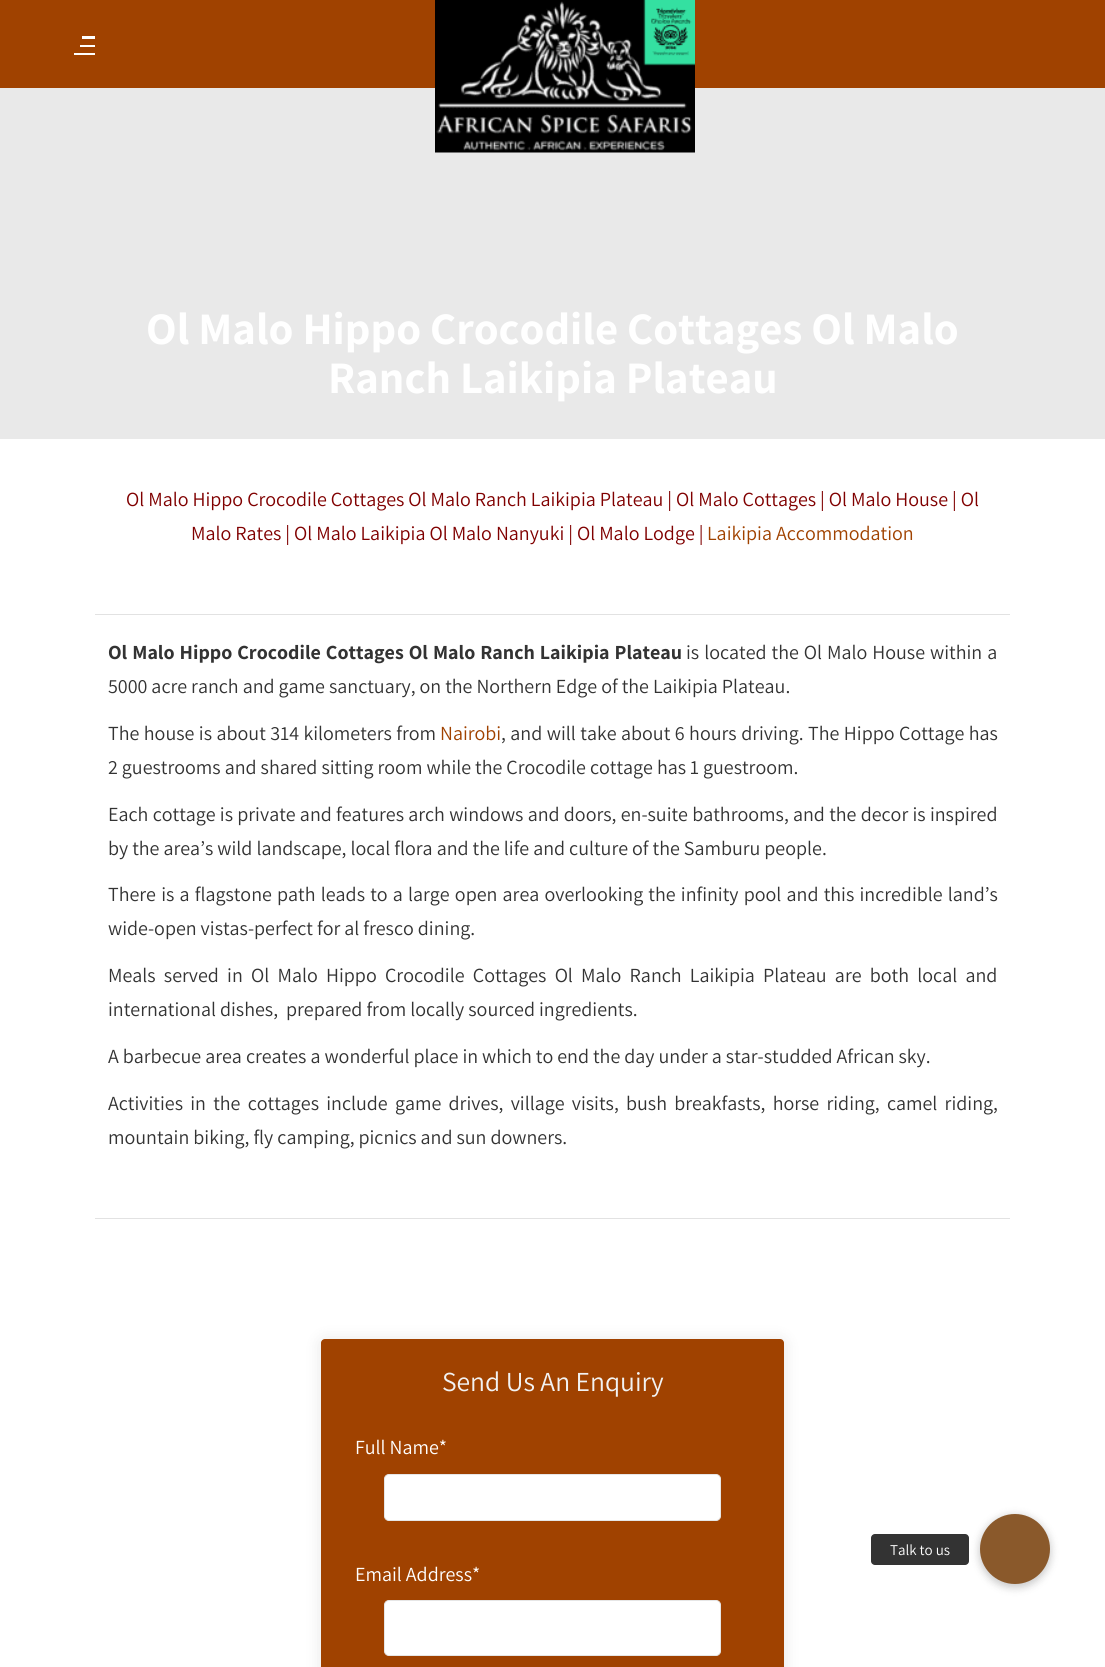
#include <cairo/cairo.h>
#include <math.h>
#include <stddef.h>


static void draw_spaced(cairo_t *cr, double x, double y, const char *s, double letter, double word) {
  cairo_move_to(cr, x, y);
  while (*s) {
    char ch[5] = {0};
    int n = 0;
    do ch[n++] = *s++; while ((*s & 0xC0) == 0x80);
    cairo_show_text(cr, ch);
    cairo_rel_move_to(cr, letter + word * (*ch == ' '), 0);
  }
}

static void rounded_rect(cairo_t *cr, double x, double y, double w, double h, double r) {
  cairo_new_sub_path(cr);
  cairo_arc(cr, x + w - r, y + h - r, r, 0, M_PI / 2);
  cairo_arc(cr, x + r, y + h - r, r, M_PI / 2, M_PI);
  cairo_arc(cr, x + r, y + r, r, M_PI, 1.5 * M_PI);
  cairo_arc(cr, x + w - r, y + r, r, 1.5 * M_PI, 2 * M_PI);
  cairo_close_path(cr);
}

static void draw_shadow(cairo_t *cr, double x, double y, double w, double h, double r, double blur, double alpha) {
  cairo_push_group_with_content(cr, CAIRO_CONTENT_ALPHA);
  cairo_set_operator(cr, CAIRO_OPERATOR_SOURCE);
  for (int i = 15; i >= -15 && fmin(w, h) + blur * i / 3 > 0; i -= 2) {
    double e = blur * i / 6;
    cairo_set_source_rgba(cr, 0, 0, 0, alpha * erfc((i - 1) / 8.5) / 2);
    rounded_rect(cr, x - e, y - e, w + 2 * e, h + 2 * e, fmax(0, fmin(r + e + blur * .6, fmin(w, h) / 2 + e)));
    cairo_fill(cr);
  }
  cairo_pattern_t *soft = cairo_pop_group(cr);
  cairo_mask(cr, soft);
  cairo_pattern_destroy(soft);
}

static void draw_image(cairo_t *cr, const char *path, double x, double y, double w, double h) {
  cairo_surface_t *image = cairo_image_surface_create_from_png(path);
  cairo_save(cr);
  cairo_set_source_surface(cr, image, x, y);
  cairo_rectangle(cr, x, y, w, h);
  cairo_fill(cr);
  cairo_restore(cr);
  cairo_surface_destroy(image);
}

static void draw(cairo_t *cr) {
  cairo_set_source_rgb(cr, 1, 1, 1);
  cairo_paint(cr);
  cairo_set_source_rgb(cr, 160 / 255.0, 66 / 255.0, 0);
  cairo_rectangle(cr, 0, 0, 1105, 88);
  cairo_fill(cr);
  cairo_set_source_rgb(cr, 1, 1, 1);
  cairo_rectangle(cr, 82, 36, 13, 3);
  cairo_fill(cr);
  cairo_rectangle(cr, 80, 45, 15, 2);
  cairo_fill(cr);
  cairo_rectangle(cr, 74, 53, 21, 2);
  cairo_fill(cr);
  cairo_set_source_rgb(cr, 233 / 255.0, 233 / 255.0, 233 / 255.0);
  cairo_rectangle(cr, 0, 88, 1105, 351);
  cairo_fill(cr);
  draw_image(cr, "images/1.png", 435, 0, 260, 153);
  cairo_set_source_rgb(cr, 226 / 255.0, 226 / 255.0, 226 / 255.0);
  cairo_rectangle(cr, 95, 614, 915, 1);
  cairo_fill(cr);
  cairo_rectangle(cr, 95, 1218, 915, 1);
  cairo_fill(cr);
  cairo_set_source_rgb(cr, 0, 0, 0);
  draw_shadow(cr, 321, 1340, 463, 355, 4, 8, 0.1);
  cairo_set_source_rgb(cr, 160 / 255.0, 66 / 255.0, 0);
  rounded_rect(cr, 321, 1339, 463, 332, 4);
  cairo_fill(cr);
  cairo_set_source_rgb(cr, 1, 1, 1);
  rounded_rect(cr, 384.5, 1474.5, 336, 46, 4.5);
  cairo_fill_preserve(cr);
  cairo_set_source_rgb(cr, 230 / 255.0, 230 / 255.0, 230 / 255.0);
  cairo_set_line_width(cr, 1);
  cairo_stroke(cr);
  cairo_set_source_rgb(cr, 1, 1, 1);
  rounded_rect(cr, 384.5, 1600.5, 336, 55, 4.5);
  cairo_fill_preserve(cr);
  cairo_set_source_rgb(cr, 230 / 255.0, 230 / 255.0, 230 / 255.0);
  cairo_stroke(cr);
  cairo_set_source_rgb(cr, 0, 0, 0);
  draw_shadow(cr, 979, 1515, 72, 73, 36, 4, 0.2);
  cairo_set_source_rgb(cr, 138 / 255.0, 89 / 255.0, 43 / 255.0);
  cairo_arc(cr, 1015, 1549, 35, 0, 2 * M_PI);
  cairo_fill(cr);
  cairo_set_source_rgb(cr, 51 / 255.0, 51 / 255.0, 51 / 255.0);
  rounded_rect(cr, 871, 1534, 98, 31, 4);
  cairo_fill(cr);
  cairo_select_font_face(cr, "Assistant", CAIRO_FONT_SLANT_NORMAL, CAIRO_FONT_WEIGHT_BOLD);
  cairo_set_font_size(cr, 45);
  cairo_set_source_rgb(cr, 1, 1, 1);
  cairo_move_to(cr, 146, 344);
  cairo_show_text(cr, "Ol Malo Hippo Crocodile Cottages Ol Malo");
  cairo_move_to(cr, 328, 393);
  cairo_show_text(cr, "Ranch Laikipia Plateau");
  cairo_select_font_face(cr, "Assistant ExtraLight", CAIRO_FONT_SLANT_NORMAL, CAIRO_FONT_WEIGHT_NORMAL);
  cairo_set_font_size(cr, 20);
  cairo_set_source_rgb(cr, 128 / 255.0, 0, 0);
  cairo_move_to(cr, 126, 506);
  cairo_show_text(cr, "Ol Malo Hippo Crocodile Cottages Ol Malo Ranch Laikipia Plateau | Ol Malo Cottages | Ol Malo House | Ol");
  cairo_move_to(cr, 191, 540);
  cairo_show_text(cr, "Malo Rates | Ol Malo Laikipia Ol Malo Nanyuki | Ol Malo Lodge |");
  cairo_set_source_rgb(cr, 160 / 255.0, 66 / 255.0, 0);
  cairo_move_to(cr, 707, 540);
  cairo_show_text(cr, "Laikipia Accommodation");
  cairo_select_font_face(cr, "Assistant", CAIRO_FONT_SLANT_NORMAL, CAIRO_FONT_WEIGHT_BOLD);
  cairo_set_source_rgb(cr, 51 / 255.0, 51 / 255.0, 51 / 255.0);
  draw_spaced(cr, 108, 659, "Ol Malo Hippo Crocodile Cottages Ol Malo Ranch Laikipia Plateau", 0, 1);
  cairo_select_font_face(cr, "Assistant ExtraLight", CAIRO_FONT_SLANT_NORMAL, CAIRO_FONT_WEIGHT_NORMAL);
  draw_spaced(cr, 686, 659, "is located the Ol Malo House within a", 0, 1);
  cairo_move_to(cr, 108, 693);
  cairo_show_text(cr, "5000 acre ranch and game sanctuary, on the Northern Edge of the Laikipia Plateau.");
  draw_spaced(cr, 108, 740, "The house is about 314 kilometers from", 0, 0.5);
  cairo_set_source_rgb(cr, 160 / 255.0, 66 / 255.0, 0);
  cairo_move_to(cr, 440, 740);
  cairo_show_text(cr, "Nairobi");
  cairo_set_source_rgb(cr, 51 / 255.0, 51 / 255.0, 51 / 255.0);
  draw_spaced(cr, 501, 740, ", and will take about 6 hours driving. The Hippo Cottage has", 0, 0.5);
  cairo_move_to(cr, 108, 774);
  cairo_show_text(cr, "2 guestrooms and shared sitting room while the Crocodile cottage has 1 guestroom.");
  draw_spaced(cr, 108, 821, "Each cottage is private and features arch windows and doors, en-suite bathrooms, and the decor is inspired", 0, 0.25);
  cairo_move_to(cr, 108, 855);
  cairo_show_text(cr, "by the area’s wild landscape, local flora and the life and culture of the Samburu people.");
  draw_spaced(cr, 108, 901, "There is a flagstone path leads to a large open area overlooking the infinity pool and this incredible land’s", 0, 1.2);
  cairo_move_to(cr, 108, 935);
  cairo_show_text(cr, "wide-open vistas-perfect for al fresco dining.");
  draw_spaced(cr, 108, 982, "Meals served in Ol Malo Hippo Crocodile Cottages Ol Malo Ranch Laikipia Plateau are both local and", 0, 4.25);
  cairo_move_to(cr, 108, 1016);
  cairo_show_text(cr, "international dishes,  prepared from locally sourced ingredients.");
  cairo_move_to(cr, 108, 1063);
  cairo_show_text(cr, "A barbecue area creates a wonderful place in which to end the day under a star-studded African sky.");
  draw_spaced(cr, 108, 1110, "Activities in the cottages include game drives, village visits, bush breakfasts, horse riding, camel riding,", 0, 3.25);
  cairo_move_to(cr, 108, 1144);
  cairo_show_text(cr, "mountain biking, fly camping, picnics and sun downers.");
  cairo_set_font_size(cr, 27.5);
  cairo_set_source_rgb(cr, 242 / 255.0, 242 / 255.0, 242 / 255.0);
  cairo_move_to(cr, 442, 1391);
  cairo_show_text(cr, "Send Us An Enquiry");
  cairo_set_font_size(cr, 20);
  cairo_set_source_rgb(cr, 1, 1, 1);
  cairo_move_to(cr, 355, 1454);
  cairo_show_text(cr, "Full Name*");
  cairo_move_to(cr, 355, 1581);
  cairo_show_text(cr, "Email Address*");
  cairo_set_font_size(cr, 15);
  cairo_move_to(cr, 890, 1555);
  cairo_show_text(cr, "Talk to us");
}

int main(void) {
  cairo_surface_t *surface = cairo_image_surface_create(CAIRO_FORMAT_RGB24, 1105, 1667);
  cairo_t *cr = cairo_create(surface);
  cairo_font_options_t *options = cairo_font_options_create();
  cairo_font_options_set_hint_metrics(options, CAIRO_HINT_METRICS_OFF);
  cairo_font_options_set_hint_style(options, CAIRO_HINT_STYLE_NONE);
  cairo_set_font_options(cr, options);
  cairo_set_miter_limit(cr, 4);
  draw(cr);
  cairo_surface_write_to_png(surface, "out.png");
  cairo_font_options_destroy(options);
  cairo_destroy(cr);
  cairo_surface_destroy(surface);
  return 0;
}
